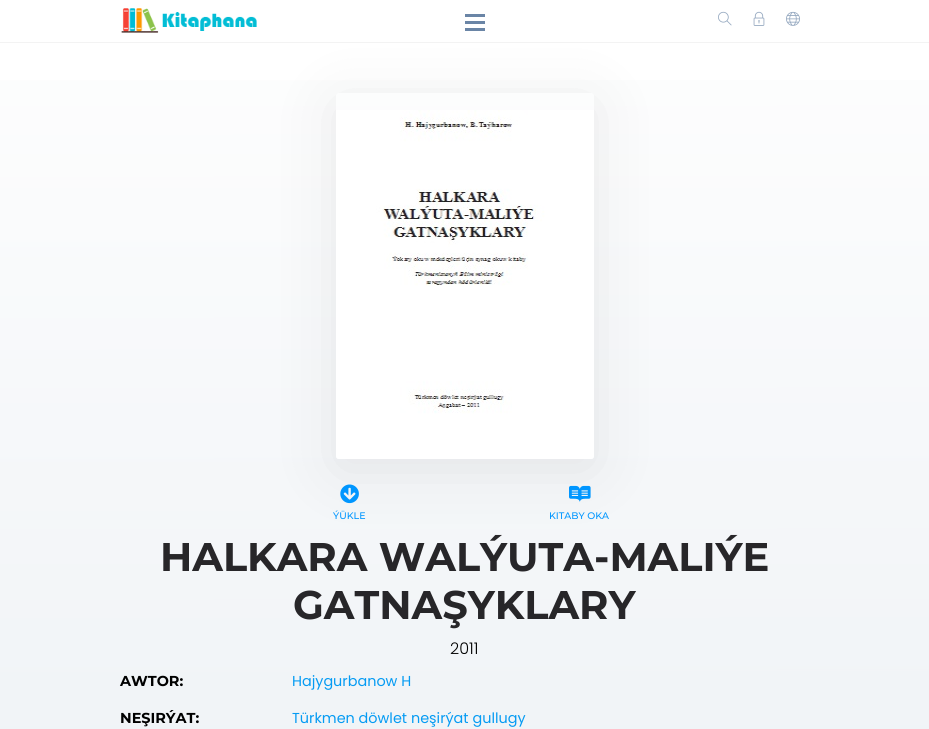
#include <cairo/cairo.h>
#include <math.h>
#include <stddef.h>


static void rounded_rect(cairo_t *cr, double x, double y, double w, double h, double r) {
  cairo_new_sub_path(cr);
  cairo_arc(cr, x + w - r, y + h - r, r, 0, M_PI / 2);
  cairo_arc(cr, x + r, y + h - r, r, M_PI / 2, M_PI);
  cairo_arc(cr, x + r, y + r, r, M_PI, 1.5 * M_PI);
  cairo_arc(cr, x + w - r, y + r, r, 1.5 * M_PI, 2 * M_PI);
  cairo_close_path(cr);
}

static void draw_shadow(cairo_t *cr, double x, double y, double w, double h, double r, double blur, double alpha) {
  cairo_push_group_with_content(cr, CAIRO_CONTENT_ALPHA);
  cairo_set_operator(cr, CAIRO_OPERATOR_SOURCE);
  for (int i = 15; i >= -15 && fmin(w, h) + blur * i / 3 > 0; i -= 2) {
    double e = blur * i / 6;
    cairo_set_source_rgba(cr, 0, 0, 0, alpha * erfc((i - 1) / 8.5) / 2);
    rounded_rect(cr, x - e, y - e, w + 2 * e, h + 2 * e, fmax(0, fmin(r + e + blur * .6, fmin(w, h) / 2 + e)));
    cairo_fill(cr);
  }
  cairo_pattern_t *soft = cairo_pop_group(cr);
  cairo_mask(cr, soft);
  cairo_pattern_destroy(soft);
}

static void draw_image(cairo_t *cr, const char *path, double x, double y, double w, double h) {
  cairo_surface_t *image = cairo_image_surface_create_from_png(path);
  cairo_save(cr);
  cairo_set_source_surface(cr, image, x, y);
  cairo_rectangle(cr, x, y, w, h);
  cairo_fill(cr);
  cairo_restore(cr);
  cairo_surface_destroy(image);
}

static void draw(cairo_t *cr) {
  cairo_pattern_t *gradient;
  cairo_set_source_rgb(cr, 1, 1, 1);
  cairo_paint(cr);
  gradient = cairo_pattern_create_linear(464, 0, 465, 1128);
  cairo_pattern_add_color_stop_rgba(gradient, 0, 254 / 255.0, 254 / 255.0, 254 / 255.0, 1);
  cairo_pattern_add_color_stop_rgba(gradient, 1, 233 / 255.0, 238 / 255.0, 243 / 255.0, 1);
  cairo_set_source(cr, gradient);
  cairo_pattern_destroy(gradient);
  cairo_rectangle(cr, 0, 80, 929, 649);
  cairo_fill(cr);
  cairo_save(cr);
  cairo_set_fill_rule(cr, CAIRO_FILL_RULE_EVEN_ODD);
  cairo_new_path(cr);
  cairo_move_to(cr, 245, 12);
  cairo_line_to(cr, 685, 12);
  cairo_line_to(cr, 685, 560);
  cairo_line_to(cr, 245, 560);
  cairo_close_path(cr);
  cairo_move_to(cr, 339, 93);
  cairo_line_to(cr, 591, 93);
  cairo_curve_to(cr, 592.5, 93, 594, 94.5, 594, 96);
  cairo_line_to(cr, 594, 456);
  cairo_curve_to(cr, 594, 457.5, 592.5, 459, 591, 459);
  cairo_line_to(cr, 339, 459);
  cairo_curve_to(cr, 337.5, 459, 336, 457.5, 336, 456);
  cairo_line_to(cr, 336, 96);
  cairo_curve_to(cr, 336, 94.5, 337.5, 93, 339, 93);
  cairo_close_path(cr);
  cairo_clip(cr);
  cairo_set_source_rgb(cr, 29 / 255.0, 29 / 255.0, 31 / 255.0);
  draw_shadow(cr, 336, 103, 258, 366, 3, 30, 0.09);
  cairo_restore(cr);
  cairo_set_source_rgb(cr, 243 / 255.0, 243 / 255.0, 243 / 255.0);
  cairo_rectangle(cr, 0, 42, 929, 1);
  cairo_fill(cr);
  draw_image(cr, "images/1.png", 121, 8, 136, 25);
  cairo_set_source_rgb(cr, 106 / 255.0, 133 / 255.0, 166 / 255.0);
  cairo_rectangle(cr, 465, 21, 20, 3);
  cairo_fill(cr);
  cairo_rectangle(cr, 465, 14, 20, 3);
  cairo_fill(cr);
  cairo_rectangle(cr, 465, 28, 20, 3);
  cairo_fill(cr);
  draw_image(cr, "images/2.png", 718, 11, 14, 15);
  draw_image(cr, "images/3.png", 753, 11, 12, 15);
  draw_image(cr, "images/4.png", 786, 11, 14, 15);
  draw_image(cr, "images/5.png", 336, 110, 258, 349);
  draw_image(cr, "images/6.png", 340, 484, 19, 20);
  draw_image(cr, "images/7.png", 569, 485, 22, 17);
  cairo_select_font_face(cr, "Montserrat Medium", CAIRO_FONT_SLANT_NORMAL, CAIRO_FONT_WEIGHT_NORMAL);
  cairo_set_font_size(cr, 9.5);
  cairo_set_source_rgb(cr, 0, 150 / 255.0, 1);
  cairo_move_to(cr, 333, 519);
  cairo_show_text(cr, "ÝÜKLE");
  cairo_move_to(cr, 549, 519);
  cairo_show_text(cr, "KITABY OKA");
  cairo_select_font_face(cr, "Montserrat", CAIRO_FONT_SLANT_NORMAL, CAIRO_FONT_WEIGHT_BOLD);
  cairo_set_font_size(cr, 40);
  cairo_set_source_rgb(cr, 39 / 255.0, 38 / 255.0, 41 / 255.0);
  cairo_move_to(cr, 160, 571);
  cairo_show_text(cr, "HALKARA WALÝUTA-MALIÝE");
  cairo_move_to(cr, 293, 619);
  cairo_show_text(cr, "GATNAŞYKLARY");
  cairo_select_font_face(cr, "Poppins Light", CAIRO_FONT_SLANT_NORMAL, CAIRO_FONT_WEIGHT_NORMAL);
  cairo_set_font_size(cr, 16);
  cairo_set_source_rgb(cr, 0, 0, 0);
  cairo_move_to(cr, 450, 654);
  cairo_show_text(cr, "2011");
  cairo_select_font_face(cr, "Montserrat", CAIRO_FONT_SLANT_NORMAL, CAIRO_FONT_WEIGHT_BOLD);
  cairo_set_font_size(cr, 14.4);
  cairo_move_to(cr, 120, 686);
  cairo_show_text(cr, "AWTOR:");
  cairo_select_font_face(cr, "Poppins", CAIRO_FONT_SLANT_NORMAL, CAIRO_FONT_WEIGHT_NORMAL);
  cairo_set_source_rgb(cr, 5 / 255.0, 155 / 255.0, 243 / 255.0);
  cairo_move_to(cr, 292, 686);
  cairo_show_text(cr, "Hajygurbanow H");
  cairo_select_font_face(cr, "Montserrat", CAIRO_FONT_SLANT_NORMAL, CAIRO_FONT_WEIGHT_BOLD);
  cairo_set_source_rgb(cr, 0, 0, 0);
  cairo_move_to(cr, 120, 723);
  cairo_show_text(cr, "NEŞIRÝAT:");
  cairo_select_font_face(cr, "Poppins", CAIRO_FONT_SLANT_NORMAL, CAIRO_FONT_WEIGHT_NORMAL);
  cairo_set_source_rgb(cr, 5 / 255.0, 155 / 255.0, 243 / 255.0);
  cairo_move_to(cr, 292, 723);
  cairo_show_text(cr, "Türkmen döwlet neşirýat gullugy");
}

int main(void) {
  cairo_surface_t *surface = cairo_image_surface_create(CAIRO_FORMAT_RGB24, 929, 729);
  cairo_t *cr = cairo_create(surface);
  cairo_font_options_t *options = cairo_font_options_create();
  cairo_font_options_set_hint_metrics(options, CAIRO_HINT_METRICS_OFF);
  cairo_font_options_set_hint_style(options, CAIRO_HINT_STYLE_NONE);
  cairo_set_font_options(cr, options);
  cairo_set_miter_limit(cr, 4);
  draw(cr);
  cairo_surface_write_to_png(surface, "out.png");
  cairo_font_options_destroy(options);
  cairo_destroy(cr);
  cairo_surface_destroy(surface);
  return 0;
}
